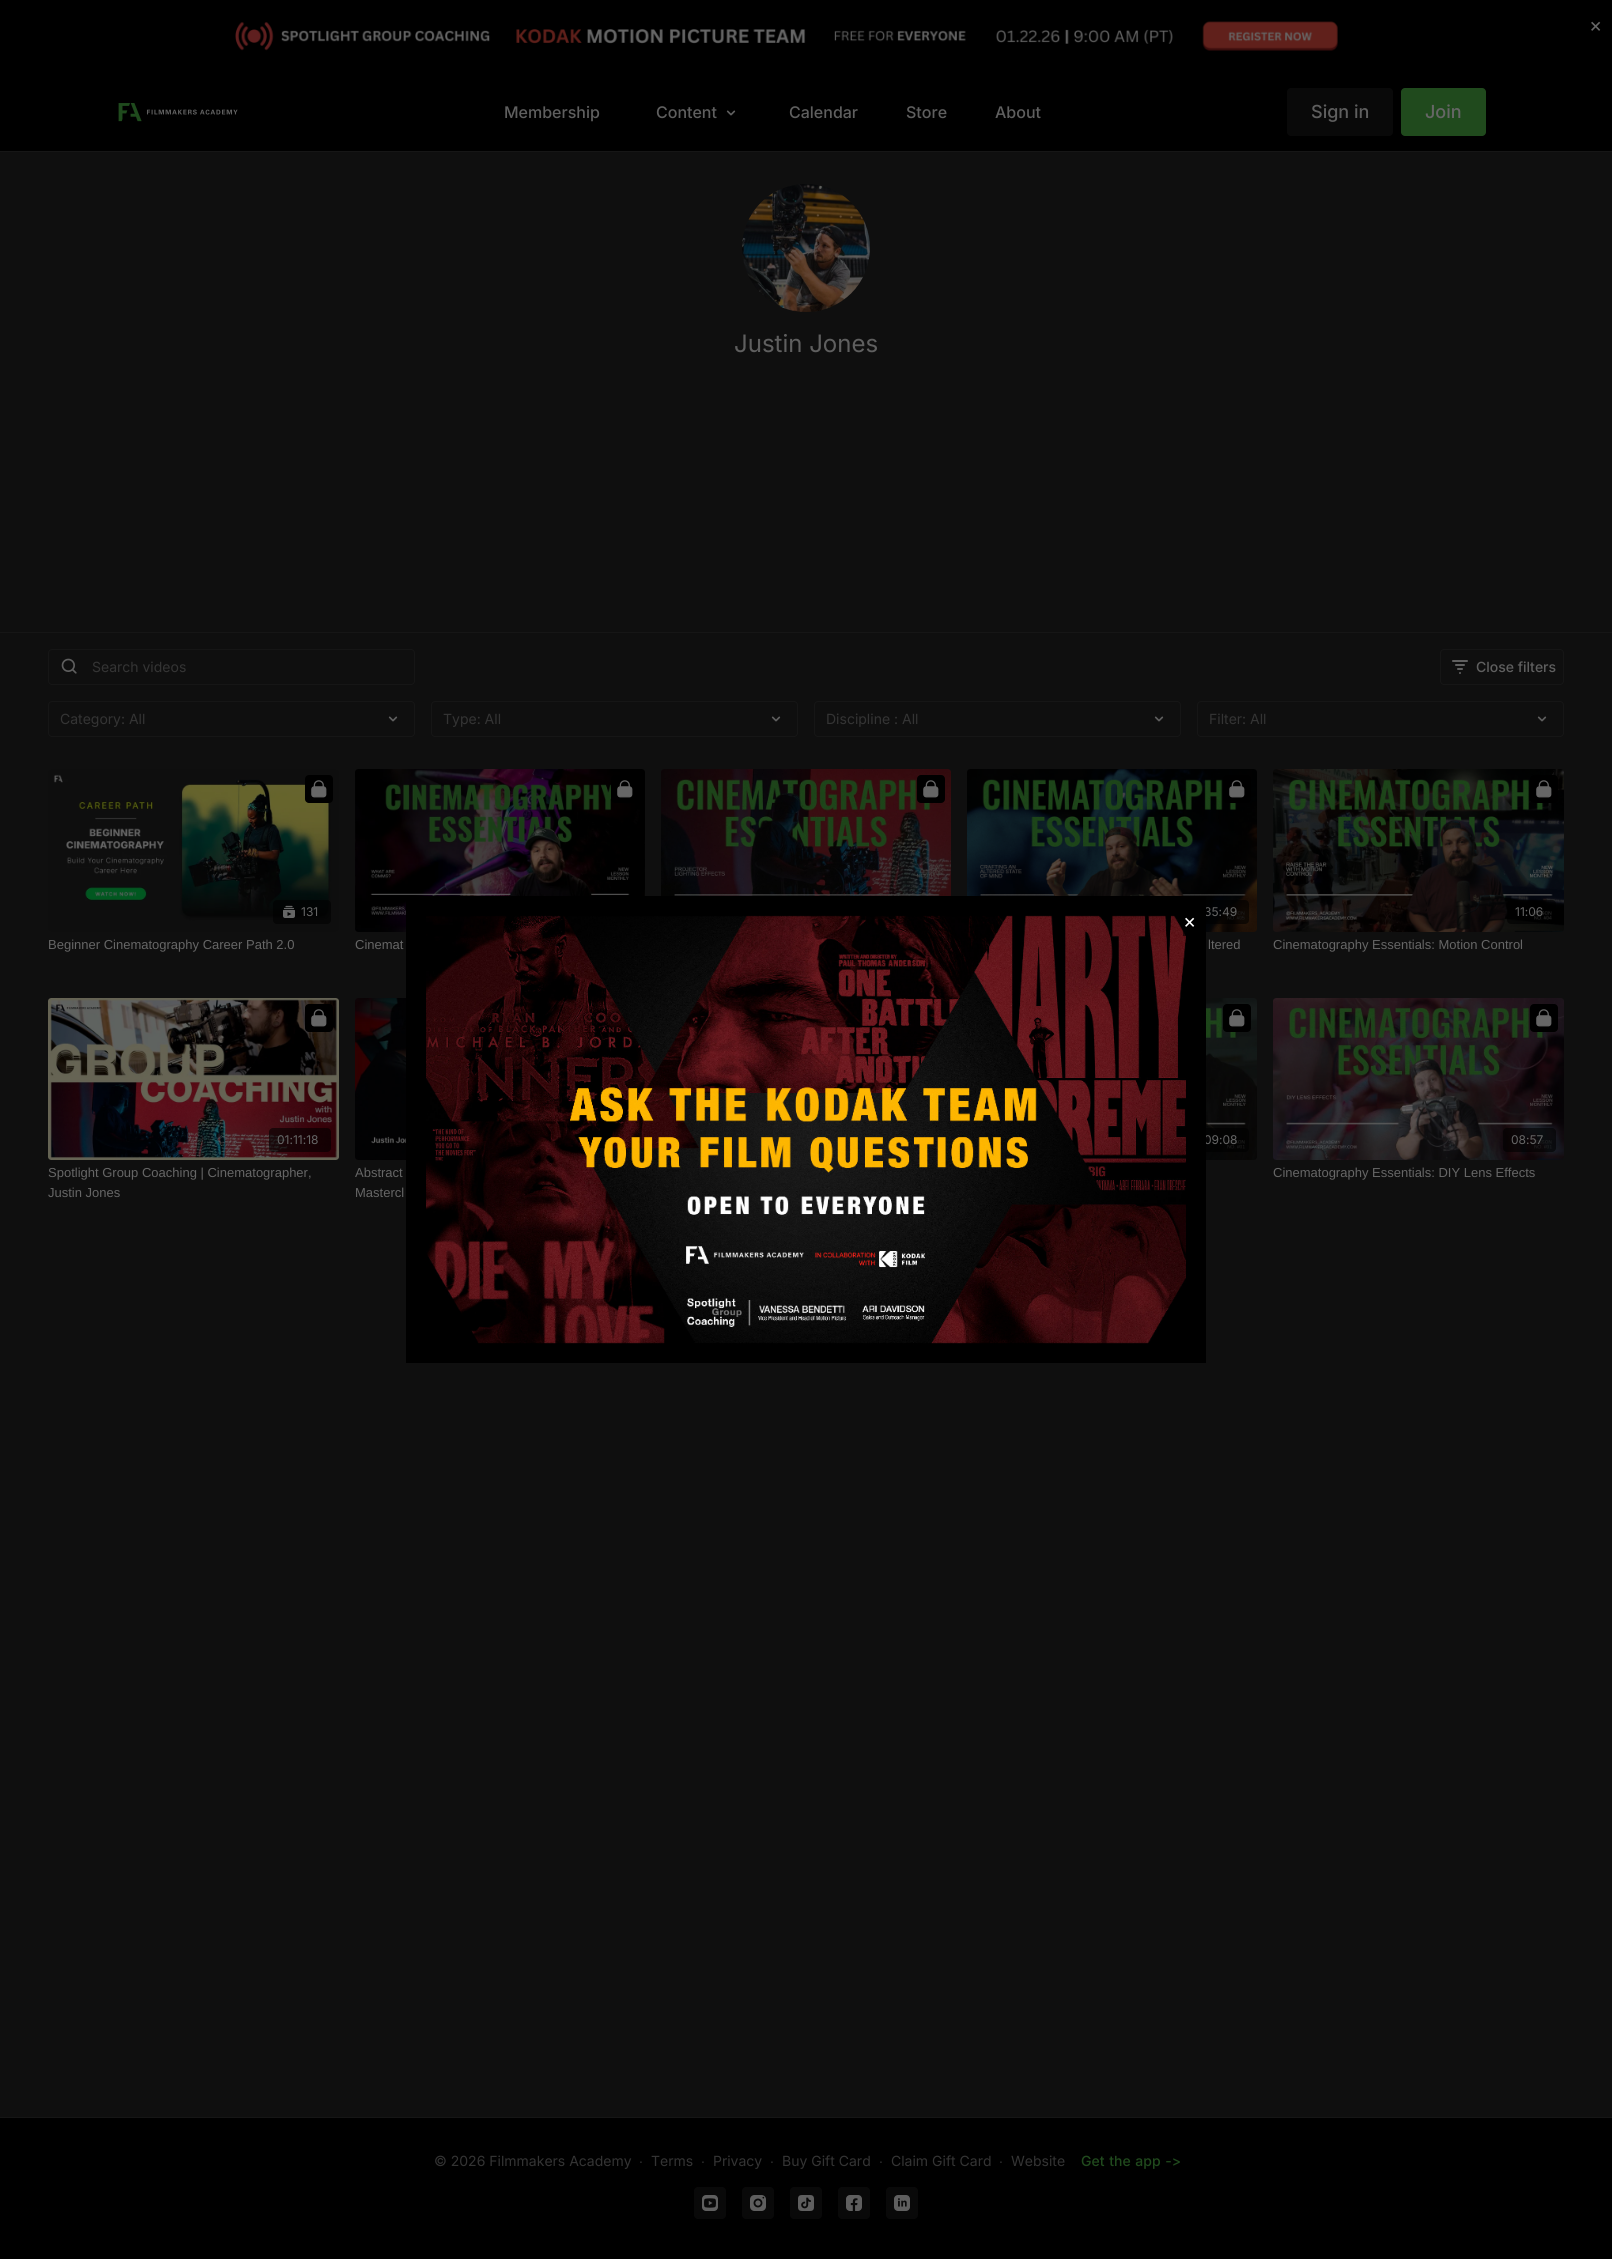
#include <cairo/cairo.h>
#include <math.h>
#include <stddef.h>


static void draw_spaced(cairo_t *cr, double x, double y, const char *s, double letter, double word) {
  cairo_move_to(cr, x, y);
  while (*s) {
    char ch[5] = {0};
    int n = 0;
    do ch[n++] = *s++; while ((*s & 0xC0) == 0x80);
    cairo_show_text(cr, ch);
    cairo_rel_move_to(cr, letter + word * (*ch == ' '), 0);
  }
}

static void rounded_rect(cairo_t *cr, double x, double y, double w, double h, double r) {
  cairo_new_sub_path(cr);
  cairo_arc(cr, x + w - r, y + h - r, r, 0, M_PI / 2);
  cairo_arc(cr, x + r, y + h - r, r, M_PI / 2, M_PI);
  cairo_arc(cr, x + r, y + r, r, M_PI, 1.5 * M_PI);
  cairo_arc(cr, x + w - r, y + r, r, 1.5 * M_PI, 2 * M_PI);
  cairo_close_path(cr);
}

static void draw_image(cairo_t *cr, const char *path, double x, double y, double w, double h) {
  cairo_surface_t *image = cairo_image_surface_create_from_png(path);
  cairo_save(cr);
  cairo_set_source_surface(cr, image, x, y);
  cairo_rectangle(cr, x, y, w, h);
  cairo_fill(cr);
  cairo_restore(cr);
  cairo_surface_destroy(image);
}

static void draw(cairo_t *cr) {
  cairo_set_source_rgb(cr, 15 / 255.0, 15 / 255.0, 15 / 255.0);
  cairo_paint(cr);
  cairo_set_source_rgb(cr, 0, 0, 0);
  cairo_rectangle(cr, 0, 0, 1612, 151);
  cairo_fill(cr);
  draw_image(cr, "images/1.png", 235, 21, 1103, 30);
  cairo_set_source_rgb(cr, 22 / 255.0, 22 / 255.0, 22 / 255.0);
  cairo_rectangle(cr, 0, 151, 1612, 1);
  cairo_fill(cr);
  draw_image(cr, "images/2.png", 118, 103, 120, 19);
  draw_image(cr, "images/3.png", 726, 110, 10, 6);
  cairo_set_source_rgb(cr, 9 / 255.0, 9 / 255.0, 9 / 255.0);
  rounded_rect(cr, 1287, 88, 106, 48, 4);
  cairo_fill(cr);
  cairo_set_source_rgb(cr, 32 / 255.0, 74 / 255.0, 29 / 255.0);
  rounded_rect(cr, 1401, 88, 85, 48, 4);
  cairo_fill(cr);
  cairo_set_source_rgb(cr, 22 / 255.0, 22 / 255.0, 22 / 255.0);
  cairo_rectangle(cr, 0, 632, 1612, 1);
  cairo_fill(cr);
  draw_image(cr, "images/5.png", 742, 184, 128, 128);
  draw_image(cr, "images/6.png", 61, 658, 16, 16);
  rounded_rect(cr, 48.5, 649.5, 366, 35, 3.5);
  cairo_set_line_width(cr, 1);
  cairo_stroke(cr);
  cairo_set_source_rgb(cr, 9 / 255.0, 9 / 255.0, 9 / 255.0);
  rounded_rect(cr, 1440, 649, 124, 36, 4);
  cairo_fill(cr);
  cairo_set_source_rgba(cr, 95 / 255.0, 95 / 255.0, 95 / 255.0, 0.08);
  rounded_rect(cr, 1440, 649, 124, 36, 4);
  cairo_fill(cr);
  rounded_rect(cr, 1440.5, 649.5, 123, 35, 3.5);
  cairo_set_source_rgb(cr, 22 / 255.0, 22 / 255.0, 22 / 255.0);
  cairo_stroke(cr);
  draw_image(cr, "images/7.png", 1452, 660, 16, 14);
  draw_image(cr, "images/8.png", 388, 716, 10, 6);
  rounded_rect(cr, 48.5, 701.5, 366, 35, 3.5);
  cairo_stroke(cr);
  draw_image(cr, "images/8.png", 771, 716, 10, 6);
  rounded_rect(cr, 431.5, 701.5, 366, 35, 3.5);
  cairo_stroke(cr);
  draw_image(cr, "images/8.png", 1154, 716, 10, 6);
  rounded_rect(cr, 814.5, 701.5, 366, 35, 3.5);
  cairo_stroke(cr);
  draw_image(cr, "images/8.png", 1537, 716, 10, 6);
  rounded_rect(cr, 1197.5, 701.5, 366, 35, 3.5);
  cairo_stroke(cr);
  draw_image(cr, "images/9.png", 661, 769, 290, 127);
  cairo_set_source_rgb(cr, 0, 0, 0);
  rounded_rect(cr, 917, 775, 28, 28, 4);
  cairo_fill(cr);
  draw_image(cr, "images/10.png", 923, 780, 16, 18);
  draw_image(cr, "images/11.png", 48, 769, 291, 163);
  rounded_rect(cr, 305, 775, 28, 28, 4);
  cairo_fill(cr);
  draw_image(cr, "images/10.png", 311, 780, 16, 18);
  cairo_set_source_rgba(cr, 0, 0, 0, 0.6);
  rounded_rect(cr, 273, 900, 58, 24, 4);
  cairo_fill(cr);
  draw_image(cr, "images/12.png", 283, 905, 12, 13);
  draw_image(cr, "images/13.png", 355, 769, 290, 163);
  cairo_set_source_rgb(cr, 0, 0, 0);
  rounded_rect(cr, 611, 775, 28, 28, 4);
  cairo_fill(cr);
  draw_image(cr, "images/10.png", 617, 780, 16, 18);
  draw_image(cr, "images/14.png", 967, 769, 290, 163);
  rounded_rect(cr, 1223, 775, 28, 28, 4);
  cairo_fill(cr);
  draw_image(cr, "images/10.png", 1229, 780, 16, 18);
  cairo_set_source_rgba(cr, 0, 0, 0, 0.6);
  rounded_rect(cr, 1196, 900, 53, 24, 4);
  cairo_fill(cr);
  draw_image(cr, "images/15.png", 1273, 769, 291, 163);
  cairo_set_source_rgb(cr, 0, 0, 0);
  rounded_rect(cr, 1530, 775, 28, 28, 4);
  cairo_fill(cr);
  draw_image(cr, "images/10.png", 1536, 780, 16, 18);
  cairo_set_source_rgba(cr, 0, 0, 0, 0.6);
  rounded_rect(cr, 1507, 900, 49, 24, 4);
  cairo_fill(cr);
  draw_image(cr, "images/16.png", 48, 998, 291, 162);
  cairo_set_source_rgb(cr, 0, 0, 0);
  rounded_rect(cr, 305, 1004, 28, 28, 4);
  cairo_fill(cr);
  draw_image(cr, "images/10.png", 311, 1009, 16, 18);
  cairo_set_source_rgba(cr, 0, 0, 0, 0.6);
  rounded_rect(cr, 269, 1128, 62, 24, 4);
  cairo_fill(cr);
  draw_image(cr, "images/17.png", 355, 998, 51, 162);
  draw_image(cr, "images/18.png", 1206, 998, 51, 162);
  cairo_set_source_rgb(cr, 0, 0, 0);
  rounded_rect(cr, 1223, 1004, 28, 28, 4);
  cairo_fill(cr);
  draw_image(cr, "images/10.png", 1229, 1009, 16, 18);
  cairo_set_source_rgba(cr, 0, 0, 0, 0.6);
  rounded_rect(cr, 1196, 1128, 53, 24, 4);
  cairo_fill(cr);
  draw_image(cr, "images/19.png", 1273, 998, 291, 162);
  cairo_set_source_rgb(cr, 0, 0, 0);
  rounded_rect(cr, 1530, 1004, 28, 28, 4);
  cairo_fill(cr);
  draw_image(cr, "images/10.png", 1536, 1009, 16, 18);
  cairo_set_source_rgba(cr, 0, 0, 0, 0.6);
  rounded_rect(cr, 1503, 1128, 53, 24, 4);
  cairo_fill(cr);
  cairo_set_source_rgb(cr, 0, 0, 0);
  cairo_rectangle(cr, 0, 2118, 1612, 141);
  cairo_fill(cr);
  cairo_set_source_rgb(cr, 22 / 255.0, 22 / 255.0, 22 / 255.0);
  cairo_rectangle(cr, 0, 2117, 1612, 1);
  cairo_fill(cr);
  cairo_set_source_rgb(cr, 9 / 255.0, 9 / 255.0, 9 / 255.0);
  rounded_rect(cr, 694, 2187, 32, 32, 4);
  cairo_fill(cr);
  draw_image(cr, "images/20.png", 702, 2195, 16, 16);
  rounded_rect(cr, 742, 2187, 32, 32, 4);
  cairo_fill(cr);
  draw_image(cr, "images/21.png", 750, 2195, 16, 16);
  rounded_rect(cr, 790, 2187, 32, 32, 4);
  cairo_fill(cr);
  draw_image(cr, "images/22.png", 798, 2195, 16, 16);
  rounded_rect(cr, 838, 2187, 32, 32, 4);
  cairo_fill(cr);
  draw_image(cr, "images/23.png", 846, 2195, 16, 16);
  rounded_rect(cr, 886, 2187, 32, 32, 4);
  cairo_fill(cr);
  draw_image(cr, "images/24.png", 894, 2195, 16, 16);
  cairo_select_font_face(cr, "Inter", CAIRO_FONT_SLANT_NORMAL, CAIRO_FONT_WEIGHT_NORMAL);
  cairo_set_font_size(cr, 20);
  cairo_set_source_rgb(cr, 102 / 255.0, 102 / 255.0, 102 / 255.0);
  cairo_move_to(cr, 1589, 32);
  cairo_show_text(cr, "×");
  cairo_select_font_face(cr, "Inter Medium", CAIRO_FONT_SLANT_NORMAL, CAIRO_FONT_WEIGHT_NORMAL);
  cairo_set_font_size(cr, 16);
  cairo_set_source_rgb(cr, 95 / 255.0, 95 / 255.0, 95 / 255.0);
  cairo_move_to(cr, 504, 118);
  cairo_show_text(cr, "Membership");
  cairo_move_to(cr, 656, 118);
  cairo_show_text(cr, "Content");
  cairo_move_to(cr, 789, 118);
  cairo_show_text(cr, "Calendar");
  cairo_move_to(cr, 906, 118);
  cairo_show_text(cr, "Store");
  cairo_move_to(cr, 995, 118);
  cairo_show_text(cr, "About");
  cairo_set_font_size(cr, 18);
  cairo_move_to(cr, 1311, 118);
  cairo_show_text(cr, "Sign in");
  cairo_set_source_rgb(cr, 102 / 255.0, 102 / 255.0, 102 / 255.0);
  cairo_move_to(cr, 1425, 118);
  cairo_show_text(cr, "Join");
  cairo_select_font_face(cr, "Inter", CAIRO_FONT_SLANT_NORMAL, CAIRO_FONT_WEIGHT_NORMAL);
  cairo_set_font_size(cr, 24);
  cairo_set_source_rgb(cr, 95 / 255.0, 95 / 255.0, 95 / 255.0);
  cairo_move_to(cr, 734, 352);
  cairo_show_text(cr, "Justin Jones");
  cairo_set_font_size(cr, 14);
  cairo_set_source_rgb(cr, 52 / 255.0, 52 / 255.0, 52 / 255.0);
  cairo_move_to(cr, 92, 672);
  cairo_show_text(cr, "Search videos");
  cairo_select_font_face(cr, "Inter Medium", CAIRO_FONT_SLANT_NORMAL, CAIRO_FONT_WEIGHT_NORMAL);
  cairo_set_source_rgb(cr, 95 / 255.0, 95 / 255.0, 95 / 255.0);
  cairo_move_to(cr, 1476, 672);
  cairo_show_text(cr, "Close filters");
  cairo_select_font_face(cr, "Inter", CAIRO_FONT_SLANT_NORMAL, CAIRO_FONT_WEIGHT_NORMAL);
  cairo_set_source_rgb(cr, 52 / 255.0, 52 / 255.0, 52 / 255.0);
  cairo_move_to(cr, 60, 724);
  cairo_show_text(cr, "Category: All");
  cairo_move_to(cr, 443, 724);
  cairo_show_text(cr, "Type: All");
  cairo_move_to(cr, 826, 724);
  cairo_show_text(cr, "Discipline : All");
  cairo_move_to(cr, 1209, 724);
  cairo_show_text(cr, "Filter: All");
  cairo_set_font_size(cr, 12);
  cairo_set_source_rgb(cr, 102 / 255.0, 102 / 255.0, 102 / 255.0);
  cairo_move_to(cr, 301, 916);
  cairo_show_text(cr, "131");
  cairo_select_font_face(cr, "Liberation Sans", CAIRO_FONT_SLANT_NORMAL, CAIRO_FONT_WEIGHT_NORMAL);
  cairo_set_font_size(cr, 13);
  cairo_move_to(cr, 48, 949);
  cairo_show_text(cr, "Beginner Cinematography Career Path 2.0");
  cairo_move_to(cr, 355, 949);
  cairo_show_text(cr, "Cinemat");
  cairo_select_font_face(cr, "Inter", CAIRO_FONT_SLANT_NORMAL, CAIRO_FONT_WEIGHT_NORMAL);
  cairo_set_font_size(cr, 12);
  cairo_move_to(cr, 1204, 916);
  cairo_show_text(cr, "35:49");
  cairo_select_font_face(cr, "Liberation Sans", CAIRO_FONT_SLANT_NORMAL, CAIRO_FONT_WEIGHT_NORMAL);
  cairo_set_font_size(cr, 13);
  cairo_move_to(cr, 1208, 949);
  cairo_show_text(cr, "ltered");
  cairo_select_font_face(cr, "Inter", CAIRO_FONT_SLANT_NORMAL, CAIRO_FONT_WEIGHT_NORMAL);
  cairo_set_font_size(cr, 12);
  cairo_move_to(cr, 1515, 916);
  cairo_show_text(cr, "11:06");
  cairo_select_font_face(cr, "Liberation Sans", CAIRO_FONT_SLANT_NORMAL, CAIRO_FONT_WEIGHT_NORMAL);
  cairo_set_font_size(cr, 13);
  cairo_move_to(cr, 1273, 949);
  cairo_show_text(cr, "Cinematography Essentials: Motion Control");
  cairo_select_font_face(cr, "Inter", CAIRO_FONT_SLANT_NORMAL, CAIRO_FONT_WEIGHT_NORMAL);
  cairo_set_font_size(cr, 12);
  cairo_move_to(cr, 277, 1144);
  cairo_show_text(cr, "01:11:18");
  cairo_select_font_face(cr, "Liberation Sans", CAIRO_FONT_SLANT_NORMAL, CAIRO_FONT_WEIGHT_NORMAL);
  cairo_set_font_size(cr, 13);
  cairo_move_to(cr, 48, 1177);
  cairo_show_text(cr, "Spotlight Group Coaching | Cinematographer,");
  cairo_move_to(cr, 48, 1197);
  cairo_show_text(cr, "Justin Jones");
  cairo_move_to(cr, 355, 1177);
  cairo_show_text(cr, "Abstract");
  cairo_move_to(cr, 355, 1197);
  cairo_show_text(cr, "Mastercl");
  cairo_select_font_face(cr, "Inter", CAIRO_FONT_SLANT_NORMAL, CAIRO_FONT_WEIGHT_NORMAL);
  cairo_set_font_size(cr, 12);
  cairo_move_to(cr, 1204, 1144);
  cairo_show_text(cr, "09:08");
  cairo_set_source_rgb(cr, 0, 0, 0);
  cairo_rectangle(cr, 406, 896, 800, 467);
  cairo_fill(cr);
  draw_image(cr, "images/4.png", 426, 915, 760, 429);
  cairo_set_font_size(cr, 20);
  cairo_set_source_rgb(cr, 1, 1, 1);
  cairo_move_to(cr, 1183, 928);
  cairo_show_text(cr, "×");
  cairo_set_source_rgba(cr, 0, 0, 0, 0.6);
  cairo_rectangle(cr, 1183, 931, 3, 5);
  cairo_fill(cr);
  cairo_set_font_size(cr, 12);
  cairo_set_source_rgb(cr, 102 / 255.0, 102 / 255.0, 102 / 255.0);
  cairo_move_to(cr, 1511, 1144);
  cairo_show_text(cr, "08:57");
  cairo_select_font_face(cr, "Liberation Sans", CAIRO_FONT_SLANT_NORMAL, CAIRO_FONT_WEIGHT_NORMAL);
  cairo_set_font_size(cr, 13);
  cairo_move_to(cr, 1273, 1177);
  cairo_show_text(cr, "Cinematography Essentials: DIY Lens Effects");
  cairo_select_font_face(cr, "Inter", CAIRO_FONT_SLANT_NORMAL, CAIRO_FONT_WEIGHT_NORMAL);
  cairo_set_font_size(cr, 14);
  cairo_set_source_rgb(cr, 52 / 255.0, 52 / 255.0, 52 / 255.0);
  cairo_move_to(cr, 434, 2166);
  cairo_show_text(cr, "© 2026 Filmmakers Academy");
  cairo_select_font_face(cr, "Liberation Sans", CAIRO_FONT_SLANT_NORMAL, CAIRO_FONT_WEIGHT_NORMAL);
  cairo_move_to(cr, 639, 2166);
  cairo_show_text(cr, "∙");
  cairo_select_font_face(cr, "Inter", CAIRO_FONT_SLANT_NORMAL, CAIRO_FONT_WEIGHT_NORMAL);
  cairo_move_to(cr, 651, 2166);
  cairo_show_text(cr, "Terms");
  cairo_select_font_face(cr, "Liberation Sans", CAIRO_FONT_SLANT_NORMAL, CAIRO_FONT_WEIGHT_NORMAL);
  cairo_move_to(cr, 701, 2166);
  cairo_show_text(cr, "∙");
  cairo_select_font_face(cr, "Inter", CAIRO_FONT_SLANT_NORMAL, CAIRO_FONT_WEIGHT_NORMAL);
  cairo_move_to(cr, 713, 2166);
  cairo_show_text(cr, "Privacy");
  cairo_select_font_face(cr, "Liberation Sans", CAIRO_FONT_SLANT_NORMAL, CAIRO_FONT_WEIGHT_NORMAL);
  cairo_move_to(cr, 770, 2166);
  cairo_show_text(cr, "∙");
  cairo_select_font_face(cr, "Inter", CAIRO_FONT_SLANT_NORMAL, CAIRO_FONT_WEIGHT_NORMAL);
  cairo_move_to(cr, 782, 2166);
  cairo_show_text(cr, "Buy Gift Card");
  cairo_select_font_face(cr, "Liberation Sans", CAIRO_FONT_SLANT_NORMAL, CAIRO_FONT_WEIGHT_NORMAL);
  cairo_move_to(cr, 879, 2166);
  cairo_show_text(cr, "∙");
  cairo_select_font_face(cr, "Inter", CAIRO_FONT_SLANT_NORMAL, CAIRO_FONT_WEIGHT_NORMAL);
  cairo_move_to(cr, 891, 2166);
  cairo_show_text(cr, "Claim Gift Card");
  cairo_select_font_face(cr, "Liberation Sans", CAIRO_FONT_SLANT_NORMAL, CAIRO_FONT_WEIGHT_NORMAL);
  cairo_move_to(cr, 999, 2166);
  cairo_show_text(cr, "∙");
  cairo_select_font_face(cr, "Inter", CAIRO_FONT_SLANT_NORMAL, CAIRO_FONT_WEIGHT_NORMAL);
  cairo_move_to(cr, 1011, 2166);
  cairo_show_text(cr, "Website");
  cairo_select_font_face(cr, "Inter Medium", CAIRO_FONT_SLANT_NORMAL, CAIRO_FONT_WEIGHT_NORMAL);
  cairo_set_source_rgb(cr, 32 / 255.0, 74 / 255.0, 29 / 255.0);
  draw_spaced(cr, 1081, 2166, "Get the app ->", 0, 1);
}

int main(void) {
  cairo_surface_t *surface = cairo_image_surface_create(CAIRO_FORMAT_RGB24, 1612, 2259);
  cairo_t *cr = cairo_create(surface);
  cairo_font_options_t *options = cairo_font_options_create();
  cairo_font_options_set_hint_metrics(options, CAIRO_HINT_METRICS_OFF);
  cairo_font_options_set_hint_style(options, CAIRO_HINT_STYLE_NONE);
  cairo_set_font_options(cr, options);
  cairo_set_miter_limit(cr, 4);
  draw(cr);
  cairo_surface_write_to_png(surface, "out.png");
  cairo_font_options_destroy(options);
  cairo_destroy(cr);
  cairo_surface_destroy(surface);
  return 0;
}
